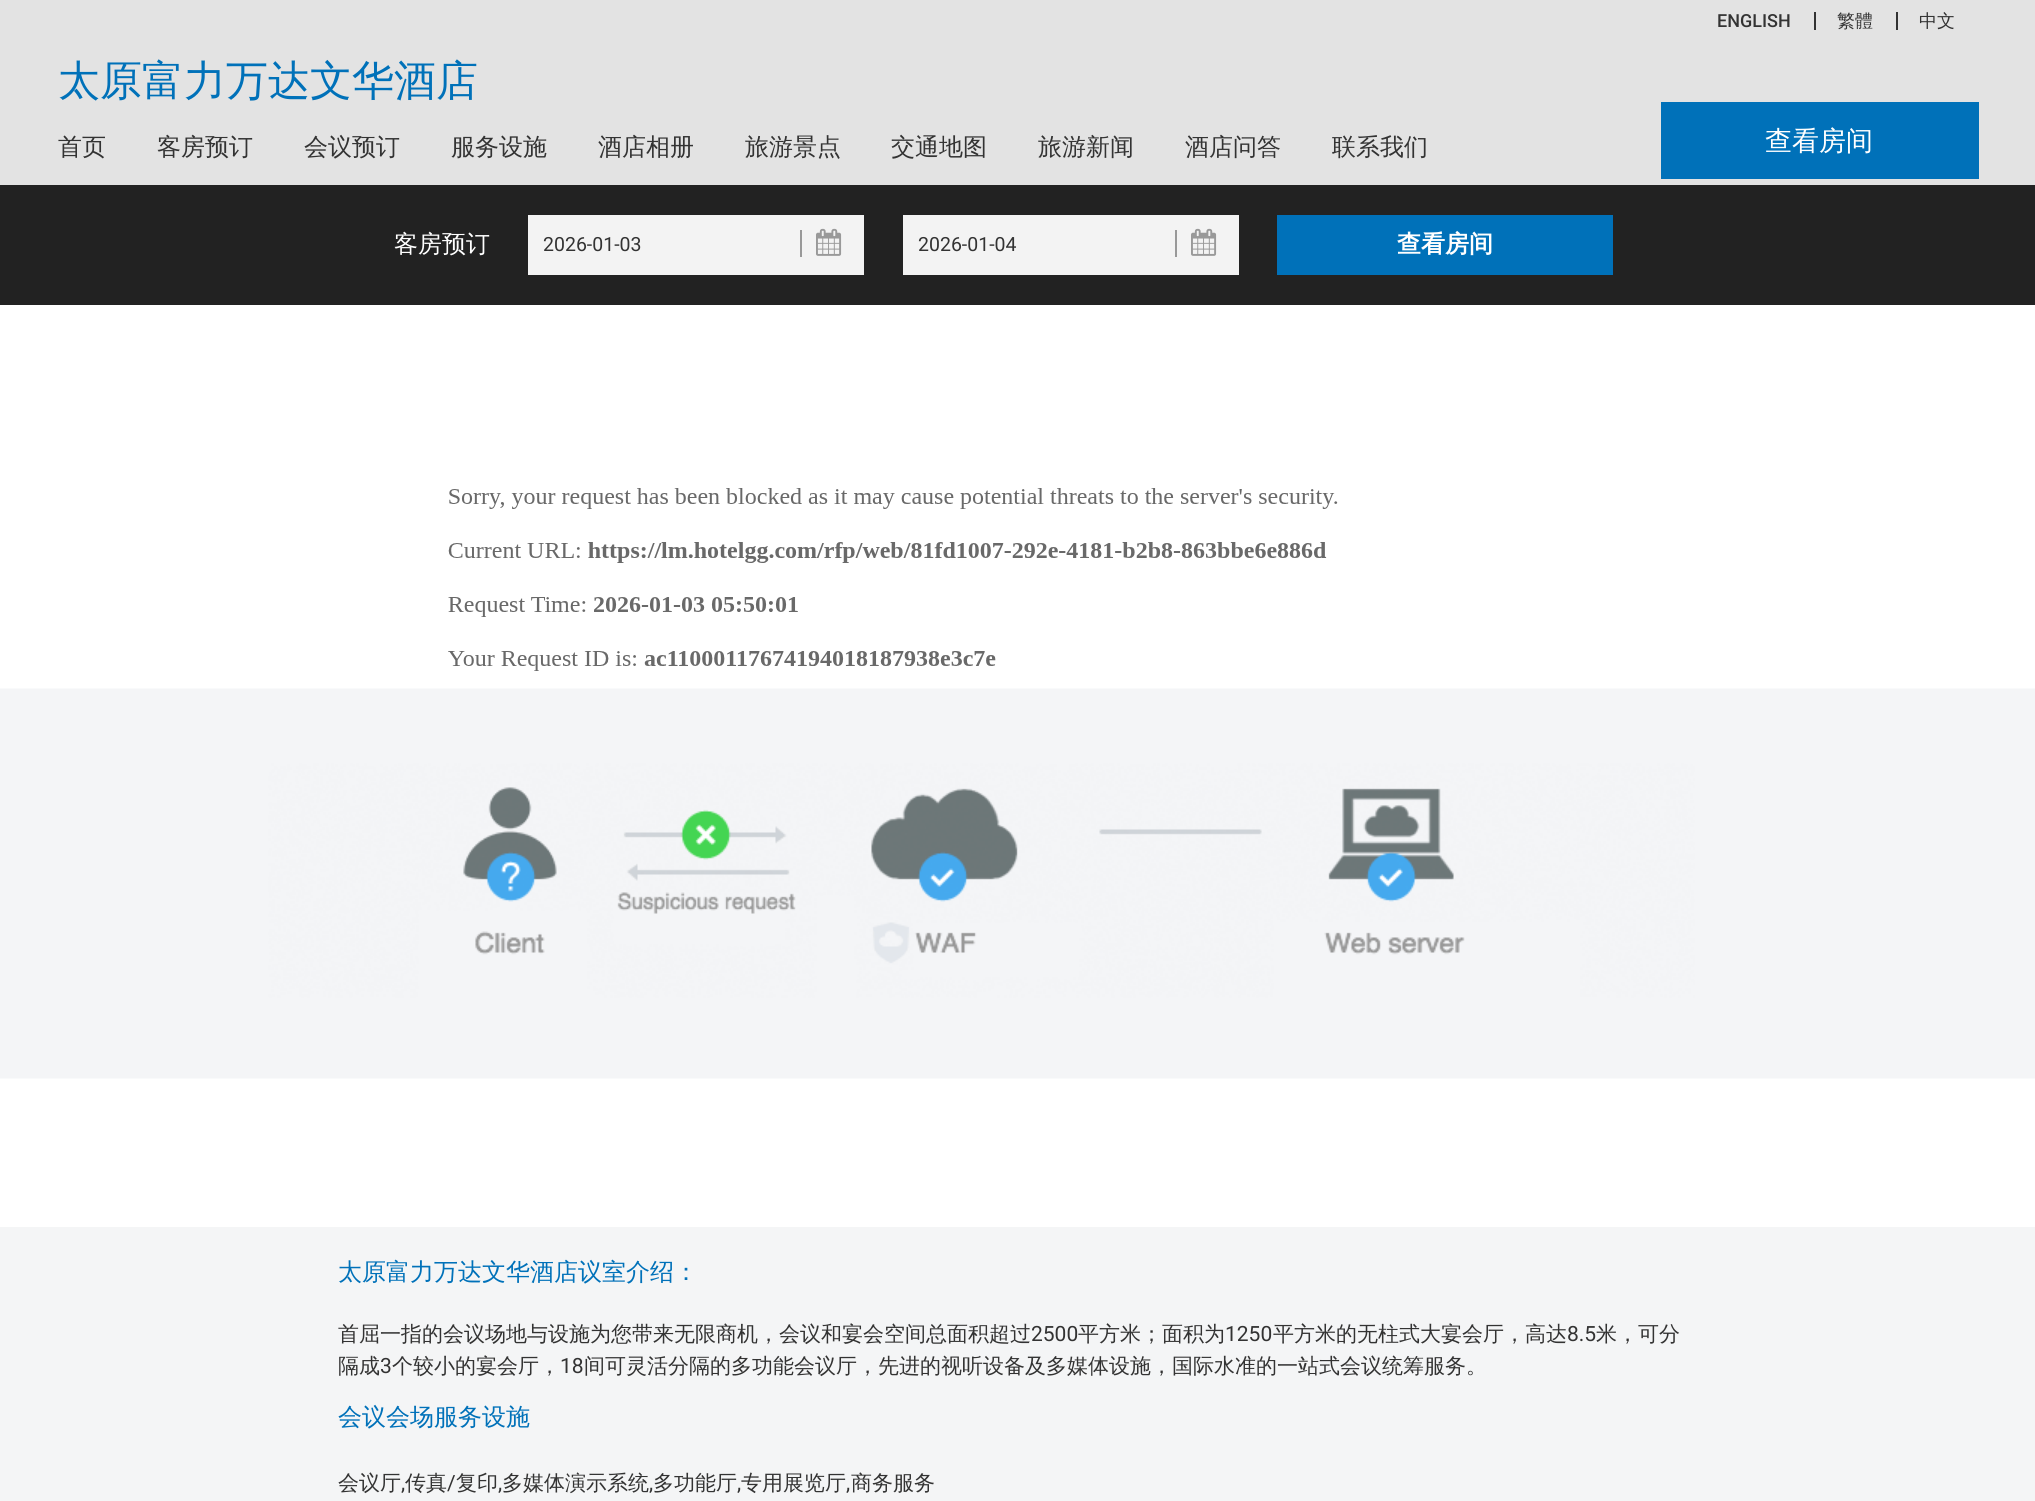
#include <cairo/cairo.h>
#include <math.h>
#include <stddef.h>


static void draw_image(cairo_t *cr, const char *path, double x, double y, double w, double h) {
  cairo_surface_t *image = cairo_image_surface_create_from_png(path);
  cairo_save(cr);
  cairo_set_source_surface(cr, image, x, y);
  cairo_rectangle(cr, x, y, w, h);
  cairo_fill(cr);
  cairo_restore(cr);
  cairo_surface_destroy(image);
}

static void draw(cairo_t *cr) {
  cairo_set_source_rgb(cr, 1, 1, 1);
  cairo_paint(cr);
  cairo_set_source_rgb(cr, 227 / 255.0, 227 / 255.0, 227 / 255.0);
  cairo_rectangle(cr, 0, 0, 2035, 185);
  cairo_fill(cr);
  cairo_set_source_rgb(cr, 51 / 255.0, 51 / 255.0, 51 / 255.0);
  cairo_rectangle(cr, 1814, 12, 2, 18);
  cairo_fill(cr);
  cairo_rectangle(cr, 1896, 12, 2, 18);
  cairo_fill(cr);
  cairo_set_source_rgb(cr, 0, 113 / 255.0, 185 / 255.0);
  cairo_rectangle(cr, 1661, 102, 318, 77);
  cairo_fill(cr);
  cairo_set_source_rgb(cr, 34 / 255.0, 34 / 255.0, 34 / 255.0);
  cairo_rectangle(cr, 0, 185, 2035, 120);
  cairo_fill(cr);
  cairo_set_source_rgb(cr, 243 / 255.0, 243 / 255.0, 243 / 255.0);
  cairo_rectangle(cr, 528, 215, 336, 60);
  cairo_fill(cr);
  cairo_set_source_rgb(cr, 153 / 255.0, 153 / 255.0, 153 / 255.0);
  cairo_rectangle(cr, 800, 230, 2, 27);
  cairo_fill(cr);
  draw_image(cr, "images/1.png", 816, 228, 26, 28);
  cairo_set_source_rgb(cr, 243 / 255.0, 243 / 255.0, 243 / 255.0);
  cairo_rectangle(cr, 903, 215, 336, 60);
  cairo_fill(cr);
  cairo_set_source_rgb(cr, 153 / 255.0, 153 / 255.0, 153 / 255.0);
  cairo_rectangle(cr, 1175, 230, 2, 27);
  cairo_fill(cr);
  draw_image(cr, "images/1.png", 1191, 228, 26, 28);
  cairo_set_source_rgb(cr, 0, 113 / 255.0, 185 / 255.0);
  cairo_rectangle(cr, 1277, 215, 336, 60);
  cairo_fill(cr);
  draw_image(cr, "images/2.png", 0, 488, 2035, 591);
  cairo_set_source_rgb(cr, 244 / 255.0, 245 / 255.0, 246 / 255.0);
  cairo_rectangle(cr, 0, 1227, 2035, 274);
  cairo_fill(cr);
  cairo_select_font_face(cr, "Roboto Medium", CAIRO_FONT_SLANT_NORMAL, CAIRO_FONT_WEIGHT_NORMAL);
  cairo_set_font_size(cr, 18);
  cairo_set_source_rgb(cr, 51 / 255.0, 51 / 255.0, 51 / 255.0);
  cairo_move_to(cr, 1717, 27);
  cairo_show_text(cr, "ENGLISH");
  cairo_select_font_face(cr, "WenQuanYi Zen Hei Medium", CAIRO_FONT_SLANT_NORMAL, CAIRO_FONT_WEIGHT_NORMAL);
  cairo_move_to(cr, 1837, 27);
  cairo_show_text(cr, "繁體");
  cairo_move_to(cr, 1919, 27);
  cairo_show_text(cr, "中文");
  cairo_set_font_size(cr, 42);
  cairo_set_source_rgb(cr, 0, 113 / 255.0, 185 / 255.0);
  cairo_move_to(cr, 58, 95);
  cairo_show_text(cr, "太原富力万达文华酒店");
  cairo_set_font_size(cr, 24);
  cairo_set_source_rgb(cr, 51 / 255.0, 51 / 255.0, 51 / 255.0);
  cairo_move_to(cr, 58, 155);
  cairo_show_text(cr, "首页");
  cairo_move_to(cr, 157, 155);
  cairo_show_text(cr, "客房预订");
  cairo_move_to(cr, 304, 155);
  cairo_show_text(cr, "会议预订");
  cairo_move_to(cr, 451, 155);
  cairo_show_text(cr, "服务设施");
  cairo_move_to(cr, 598, 155);
  cairo_show_text(cr, "酒店相册");
  cairo_move_to(cr, 745, 155);
  cairo_show_text(cr, "旅游景点");
  cairo_move_to(cr, 891, 155);
  cairo_show_text(cr, "交通地图");
  cairo_move_to(cr, 1038, 155);
  cairo_show_text(cr, "旅游新闻");
  cairo_move_to(cr, 1185, 155);
  cairo_show_text(cr, "酒店问答");
  cairo_move_to(cr, 1332, 155);
  cairo_show_text(cr, "联系我们");
  cairo_set_font_size(cr, 27);
  cairo_set_source_rgb(cr, 1, 1, 1);
  cairo_move_to(cr, 1765, 150);
  cairo_show_text(cr, "查看房间");
  cairo_set_font_size(cr, 24);
  cairo_move_to(cr, 394, 252);
  cairo_show_text(cr, "客房预订");
  cairo_select_font_face(cr, "Roboto", CAIRO_FONT_SLANT_NORMAL, CAIRO_FONT_WEIGHT_NORMAL);
  cairo_set_font_size(cr, 19.5);
  cairo_set_source_rgb(cr, 51 / 255.0, 51 / 255.0, 51 / 255.0);
  cairo_move_to(cr, 543, 251);
  cairo_show_text(cr, "2026-01-03");
  cairo_move_to(cr, 918, 251);
  cairo_show_text(cr, "2026-01-04");
  cairo_select_font_face(cr, "WenQuanYi Zen Hei", CAIRO_FONT_SLANT_NORMAL, CAIRO_FONT_WEIGHT_BOLD);
  cairo_set_font_size(cr, 24);
  cairo_set_source_rgb(cr, 1, 1, 1);
  cairo_move_to(cr, 1397, 252);
  cairo_show_text(cr, "查看房间");
  cairo_select_font_face(cr, "WenQuanYi Zen Hei Medium", CAIRO_FONT_SLANT_NORMAL, CAIRO_FONT_WEIGHT_NORMAL);
  cairo_set_source_rgb(cr, 0, 113 / 255.0, 185 / 255.0);
  cairo_move_to(cr, 338, 1280);
  cairo_show_text(cr, "太原富力万达文华酒店议室介绍：");
  cairo_set_font_size(cr, 21);
  cairo_set_source_rgb(cr, 51 / 255.0, 51 / 255.0, 51 / 255.0);
  cairo_move_to(cr, 338, 1341);
  cairo_show_text(cr, "首屈一指的会议场地与设施为您带来无限商机，会议和宴会空间总面积超过");
  cairo_select_font_face(cr, "Roboto", CAIRO_FONT_SLANT_NORMAL, CAIRO_FONT_WEIGHT_NORMAL);
  cairo_move_to(cr, 1031, 1341);
  cairo_show_text(cr, "2500");
  cairo_select_font_face(cr, "WenQuanYi Zen Hei Medium", CAIRO_FONT_SLANT_NORMAL, CAIRO_FONT_WEIGHT_NORMAL);
  cairo_move_to(cr, 1078, 1341);
  cairo_show_text(cr, "平方米；面积为");
  cairo_select_font_face(cr, "Roboto", CAIRO_FONT_SLANT_NORMAL, CAIRO_FONT_WEIGHT_NORMAL);
  cairo_move_to(cr, 1225, 1341);
  cairo_show_text(cr, "1250");
  cairo_select_font_face(cr, "WenQuanYi Zen Hei Medium", CAIRO_FONT_SLANT_NORMAL, CAIRO_FONT_WEIGHT_NORMAL);
  cairo_move_to(cr, 1273, 1341);
  cairo_show_text(cr, "平方米的无柱式大宴会厅，高达");
  cairo_select_font_face(cr, "Roboto", CAIRO_FONT_SLANT_NORMAL, CAIRO_FONT_WEIGHT_NORMAL);
  cairo_move_to(cr, 1567, 1341);
  cairo_show_text(cr, "8.5");
  cairo_select_font_face(cr, "WenQuanYi Zen Hei Medium", CAIRO_FONT_SLANT_NORMAL, CAIRO_FONT_WEIGHT_NORMAL);
  cairo_move_to(cr, 1596, 1341);
  cairo_show_text(cr, "米，可分");
  cairo_move_to(cr, 338, 1373);
  cairo_show_text(cr, "隔成");
  cairo_select_font_face(cr, "Roboto", CAIRO_FONT_SLANT_NORMAL, CAIRO_FONT_WEIGHT_NORMAL);
  cairo_move_to(cr, 380, 1373);
  cairo_show_text(cr, "3");
  cairo_select_font_face(cr, "WenQuanYi Zen Hei Medium", CAIRO_FONT_SLANT_NORMAL, CAIRO_FONT_WEIGHT_NORMAL);
  cairo_move_to(cr, 392, 1373);
  cairo_show_text(cr, "个较小的宴会厅，");
  cairo_select_font_face(cr, "Roboto", CAIRO_FONT_SLANT_NORMAL, CAIRO_FONT_WEIGHT_NORMAL);
  cairo_move_to(cr, 560, 1373);
  cairo_show_text(cr, "18");
  cairo_select_font_face(cr, "WenQuanYi Zen Hei Medium", CAIRO_FONT_SLANT_NORMAL, CAIRO_FONT_WEIGHT_NORMAL);
  cairo_move_to(cr, 584, 1373);
  cairo_show_text(cr, "间可灵活分隔的多功能会议厅，先进的视听设备及多媒体设施，国际水准的一站式会议统筹服务。");
  cairo_set_font_size(cr, 24);
  cairo_set_source_rgb(cr, 0, 113 / 255.0, 185 / 255.0);
  cairo_move_to(cr, 338, 1425);
  cairo_show_text(cr, "会议会场服务设施");
  cairo_set_font_size(cr, 21);
  cairo_set_source_rgb(cr, 51 / 255.0, 51 / 255.0, 51 / 255.0);
  cairo_move_to(cr, 338, 1490);
  cairo_show_text(cr, "会议厅");
  cairo_select_font_face(cr, "Roboto", CAIRO_FONT_SLANT_NORMAL, CAIRO_FONT_WEIGHT_NORMAL);
  cairo_move_to(cr, 401, 1490);
  cairo_show_text(cr, ",");
  cairo_select_font_face(cr, "WenQuanYi Zen Hei Medium", CAIRO_FONT_SLANT_NORMAL, CAIRO_FONT_WEIGHT_NORMAL);
  cairo_move_to(cr, 405, 1490);
  cairo_show_text(cr, "传真");
  cairo_select_font_face(cr, "Roboto", CAIRO_FONT_SLANT_NORMAL, CAIRO_FONT_WEIGHT_NORMAL);
  cairo_move_to(cr, 447, 1490);
  cairo_show_text(cr, "/");
  cairo_select_font_face(cr, "WenQuanYi Zen Hei Medium", CAIRO_FONT_SLANT_NORMAL, CAIRO_FONT_WEIGHT_NORMAL);
  cairo_move_to(cr, 456, 1490);
  cairo_show_text(cr, "复印");
  cairo_select_font_face(cr, "Roboto", CAIRO_FONT_SLANT_NORMAL, CAIRO_FONT_WEIGHT_NORMAL);
  cairo_move_to(cr, 498, 1490);
  cairo_show_text(cr, ",");
  cairo_select_font_face(cr, "WenQuanYi Zen Hei Medium", CAIRO_FONT_SLANT_NORMAL, CAIRO_FONT_WEIGHT_NORMAL);
  cairo_move_to(cr, 502, 1490);
  cairo_show_text(cr, "多媒体演示系统");
  cairo_select_font_face(cr, "Roboto", CAIRO_FONT_SLANT_NORMAL, CAIRO_FONT_WEIGHT_NORMAL);
  cairo_move_to(cr, 649, 1490);
  cairo_show_text(cr, ",");
  cairo_select_font_face(cr, "WenQuanYi Zen Hei Medium", CAIRO_FONT_SLANT_NORMAL, CAIRO_FONT_WEIGHT_NORMAL);
  cairo_move_to(cr, 653, 1490);
  cairo_show_text(cr, "多功能厅");
  cairo_select_font_face(cr, "Roboto", CAIRO_FONT_SLANT_NORMAL, CAIRO_FONT_WEIGHT_NORMAL);
  cairo_move_to(cr, 737, 1490);
  cairo_show_text(cr, ",");
  cairo_select_font_face(cr, "WenQuanYi Zen Hei Medium", CAIRO_FONT_SLANT_NORMAL, CAIRO_FONT_WEIGHT_NORMAL);
  cairo_move_to(cr, 741, 1490);
  cairo_show_text(cr, "专用展览厅");
  cairo_select_font_face(cr, "Roboto", CAIRO_FONT_SLANT_NORMAL, CAIRO_FONT_WEIGHT_NORMAL);
  cairo_move_to(cr, 846, 1490);
  cairo_show_text(cr, ",");
  cairo_select_font_face(cr, "WenQuanYi Zen Hei Medium", CAIRO_FONT_SLANT_NORMAL, CAIRO_FONT_WEIGHT_NORMAL);
  cairo_move_to(cr, 851, 1490);
  cairo_show_text(cr, "商务服务");
}

int main(void) {
  cairo_surface_t *surface = cairo_image_surface_create(CAIRO_FORMAT_RGB24, 2035, 1501);
  cairo_t *cr = cairo_create(surface);
  cairo_font_options_t *options = cairo_font_options_create();
  cairo_font_options_set_hint_metrics(options, CAIRO_HINT_METRICS_OFF);
  cairo_font_options_set_hint_style(options, CAIRO_HINT_STYLE_NONE);
  cairo_set_font_options(cr, options);
  cairo_set_miter_limit(cr, 4);
  draw(cr);
  cairo_surface_write_to_png(surface, "out.png");
  cairo_font_options_destroy(options);
  cairo_destroy(cr);
  cairo_surface_destroy(surface);
  return 0;
}
